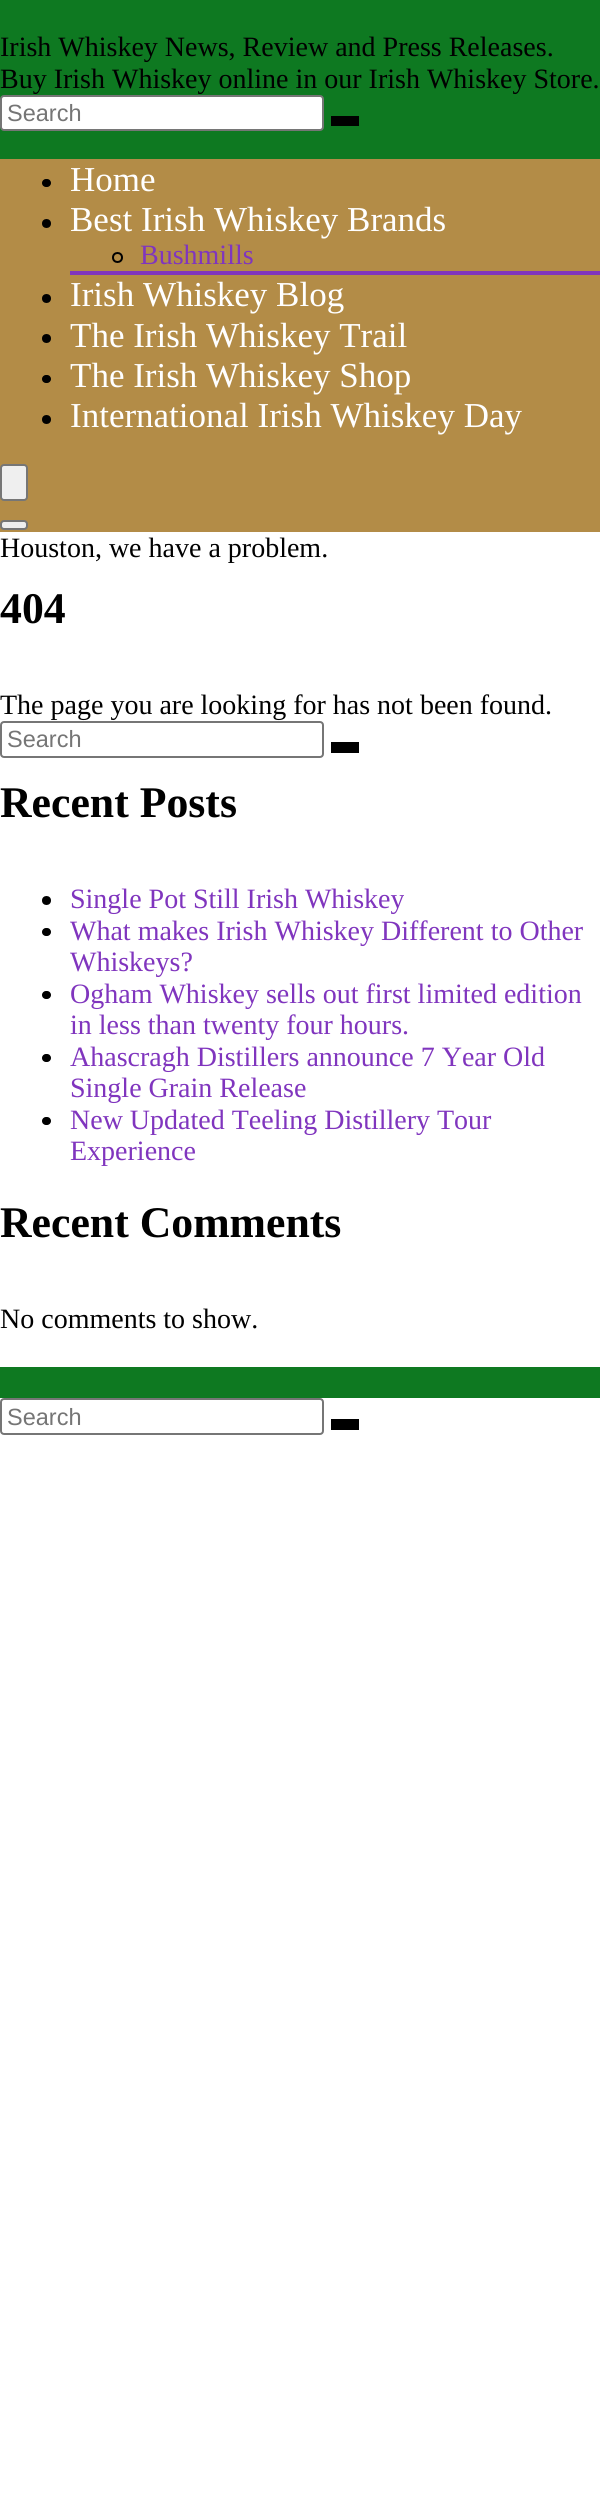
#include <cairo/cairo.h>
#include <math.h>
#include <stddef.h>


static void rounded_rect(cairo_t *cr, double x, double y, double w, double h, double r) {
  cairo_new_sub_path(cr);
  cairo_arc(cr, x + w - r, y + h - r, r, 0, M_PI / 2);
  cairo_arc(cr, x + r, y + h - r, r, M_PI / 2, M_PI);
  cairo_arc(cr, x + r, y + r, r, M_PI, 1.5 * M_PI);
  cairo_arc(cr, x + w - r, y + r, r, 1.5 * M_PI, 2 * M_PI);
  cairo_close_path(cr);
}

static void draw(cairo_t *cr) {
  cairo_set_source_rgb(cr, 1, 1, 1);
  cairo_paint(cr);
  cairo_set_source_rgb(cr, 14 / 255.0, 121 / 255.0, 33 / 255.0);
  cairo_rectangle(cr, 0, 0, 600, 159);
  cairo_fill(cr);
  cairo_set_source_rgb(cr, 1, 1, 1);
  rounded_rect(cr, 1, 96, 322, 34, 3);
  cairo_fill_preserve(cr);
  cairo_set_source_rgb(cr, 118 / 255.0, 118 / 255.0, 118 / 255.0);
  cairo_stroke(cr);
  cairo_set_source_rgb(cr, 0, 0, 0);
  cairo_rectangle(cr, 331, 116, 28, 10);
  cairo_fill(cr);
  cairo_set_source_rgb(cr, 179 / 255.0, 140 / 255.0, 71 / 255.0);
  cairo_rectangle(cr, 0, 159, 600, 373);
  cairo_fill(cr);
  cairo_set_source_rgb(cr, 0, 0, 0);
  rounded_rect(cr, 42, 179, 9, 8, 4);
  cairo_fill(cr);
  cairo_arc(cr, 46.5, 223.5, 4.5, 0, 2 * M_PI);
  cairo_fill(cr);
  cairo_set_source_rgb(cr, 128 / 255.0, 53 / 255.0, 190 / 255.0);
  cairo_rectangle(cr, 70, 271, 530, 4);
  cairo_fill(cr);
  cairo_arc(cr, 117.5, 257.5, 4.5, 0, 2 * M_PI);
  cairo_set_source_rgb(cr, 0, 0, 0);
  cairo_stroke(cr);
  cairo_arc(cr, 46.5, 298.5, 4.5, 0, 2 * M_PI);
  cairo_fill(cr);
  cairo_arc(cr, 46.5, 338.5, 4.5, 0, 2 * M_PI);
  cairo_fill(cr);
  rounded_rect(cr, 42, 375, 9, 8, 4);
  cairo_fill(cr);
  cairo_arc(cr, 46.5, 419.5, 4.5, 0, 2 * M_PI);
  cairo_fill(cr);
  cairo_set_source_rgb(cr, 239 / 255.0, 239 / 255.0, 239 / 255.0);
  rounded_rect(cr, 1, 465, 26, 35, 3);
  cairo_fill_preserve(cr);
  cairo_set_source_rgb(cr, 118 / 255.0, 118 / 255.0, 118 / 255.0);
  cairo_stroke(cr);
  cairo_set_source_rgb(cr, 239 / 255.0, 239 / 255.0, 239 / 255.0);
  rounded_rect(cr, 1, 521, 26, 8, 3);
  cairo_fill_preserve(cr);
  cairo_set_source_rgb(cr, 118 / 255.0, 118 / 255.0, 118 / 255.0);
  cairo_stroke(cr);
  rounded_rect(cr, 1, 722, 322, 35, 3);
  cairo_stroke(cr);
  cairo_set_source_rgb(cr, 0, 0, 0);
  cairo_rectangle(cr, 331, 742, 28, 11);
  cairo_fill(cr);
  cairo_arc(cr, 46.5, 900.5, 4.5, 0, 2 * M_PI);
  cairo_fill(cr);
  rounded_rect(cr, 42, 928, 9, 8, 4);
  cairo_fill(cr);
  rounded_rect(cr, 42, 991, 9, 8, 4);
  cairo_fill(cr);
  rounded_rect(cr, 42, 1054, 9, 8, 4);
  cairo_fill(cr);
  rounded_rect(cr, 42, 1117, 9, 8, 4);
  cairo_fill(cr);
  cairo_set_source_rgb(cr, 14 / 255.0, 121 / 255.0, 33 / 255.0);
  cairo_rectangle(cr, 0, 1367, 600, 31);
  cairo_fill(cr);
  rounded_rect(cr, 1, 1399, 322, 35, 3);
  cairo_set_source_rgb(cr, 118 / 255.0, 118 / 255.0, 118 / 255.0);
  cairo_stroke(cr);
  cairo_set_source_rgb(cr, 0, 0, 0);
  cairo_rectangle(cr, 331, 1419, 28, 11);
  cairo_fill(cr);
  cairo_select_font_face(cr, "Liberation Serif", CAIRO_FONT_SLANT_NORMAL, CAIRO_FONT_WEIGHT_NORMAL);
  cairo_set_font_size(cr, 28);
  cairo_move_to(cr, 0, 56);
  cairo_show_text(cr, "Irish Whiskey News, Review and Press Releases.");
  cairo_move_to(cr, 0, 88);
  cairo_show_text(cr, "Buy Irish Whiskey online in our Irish Whiskey Store.");
  cairo_select_font_face(cr, "Liberation Sans", CAIRO_FONT_SLANT_NORMAL, CAIRO_FONT_WEIGHT_NORMAL);
  cairo_set_font_size(cr, 23.5);
  cairo_set_source_rgb(cr, 117 / 255.0, 117 / 255.0, 117 / 255.0);
  cairo_move_to(cr, 7, 121);
  cairo_show_text(cr, "Search");
  cairo_select_font_face(cr, "Liberation Serif", CAIRO_FONT_SLANT_NORMAL, CAIRO_FONT_WEIGHT_NORMAL);
  cairo_set_font_size(cr, 35);
  cairo_set_source_rgb(cr, 1, 1, 1);
  cairo_move_to(cr, 70, 191);
  cairo_show_text(cr, "Home");
  cairo_move_to(cr, 70, 231);
  cairo_show_text(cr, "Best Irish Whiskey Brands");
  cairo_set_font_size(cr, 28);
  cairo_set_source_rgb(cr, 128 / 255.0, 53 / 255.0, 190 / 255.0);
  cairo_move_to(cr, 140, 264);
  cairo_show_text(cr, "Bushmills");
  cairo_set_font_size(cr, 35);
  cairo_set_source_rgb(cr, 1, 1, 1);
  cairo_move_to(cr, 70, 306);
  cairo_show_text(cr, "Irish Whiskey Blog");
  cairo_move_to(cr, 70, 347);
  cairo_show_text(cr, "The Irish Whiskey Trail");
  cairo_move_to(cr, 70, 387);
  cairo_show_text(cr, "The Irish Whiskey Shop");
  cairo_move_to(cr, 70, 427);
  cairo_show_text(cr, "International Irish Whiskey Day");
  cairo_set_font_size(cr, 28);
  cairo_set_source_rgb(cr, 0, 0, 0);
  cairo_move_to(cr, 0, 557);
  cairo_show_text(cr, "Houston, we have a problem.");
  cairo_select_font_face(cr, "Liberation Serif", CAIRO_FONT_SLANT_NORMAL, CAIRO_FONT_WEIGHT_BOLD);
  cairo_set_font_size(cr, 43.75);
  cairo_move_to(cr, 0, 623);
  cairo_show_text(cr, "404");
  cairo_select_font_face(cr, "Liberation Serif", CAIRO_FONT_SLANT_NORMAL, CAIRO_FONT_WEIGHT_NORMAL);
  cairo_set_font_size(cr, 28);
  cairo_move_to(cr, 0, 714);
  cairo_show_text(cr, "The page you are looking for has not been found.");
  cairo_select_font_face(cr, "Liberation Sans", CAIRO_FONT_SLANT_NORMAL, CAIRO_FONT_WEIGHT_NORMAL);
  cairo_set_font_size(cr, 23.5);
  cairo_set_source_rgb(cr, 117 / 255.0, 117 / 255.0, 117 / 255.0);
  cairo_move_to(cr, 7, 747);
  cairo_show_text(cr, "Search");
  cairo_select_font_face(cr, "Liberation Serif", CAIRO_FONT_SLANT_NORMAL, CAIRO_FONT_WEIGHT_BOLD);
  cairo_set_font_size(cr, 43.75);
  cairo_set_source_rgb(cr, 0, 0, 0);
  cairo_move_to(cr, 0, 817);
  cairo_show_text(cr, "Recent Posts");
  cairo_select_font_face(cr, "Liberation Serif", CAIRO_FONT_SLANT_NORMAL, CAIRO_FONT_WEIGHT_NORMAL);
  cairo_set_font_size(cr, 28);
  cairo_set_source_rgb(cr, 128 / 255.0, 53 / 255.0, 190 / 255.0);
  cairo_move_to(cr, 70, 908);
  cairo_show_text(cr, "Single Pot Still Irish Whiskey");
  cairo_move_to(cr, 70, 940);
  cairo_show_text(cr, "What makes Irish Whiskey Different to Other");
  cairo_move_to(cr, 70, 971);
  cairo_show_text(cr, "Whiskeys?");
  cairo_move_to(cr, 70, 1003);
  cairo_show_text(cr, "Ogham Whiskey sells out first limited edition");
  cairo_move_to(cr, 70, 1034);
  cairo_show_text(cr, "in less than twenty four hours.");
  cairo_move_to(cr, 70, 1066);
  cairo_show_text(cr, "Ahascragh Distillers announce 7 Year Old");
  cairo_move_to(cr, 70, 1097);
  cairo_show_text(cr, "Single Grain Release");
  cairo_move_to(cr, 70, 1129);
  cairo_show_text(cr, "New Updated Teeling Distillery Tour");
  cairo_move_to(cr, 70, 1160);
  cairo_show_text(cr, "Experience");
  cairo_select_font_face(cr, "Liberation Serif", CAIRO_FONT_SLANT_NORMAL, CAIRO_FONT_WEIGHT_BOLD);
  cairo_set_font_size(cr, 43.75);
  cairo_set_source_rgb(cr, 0, 0, 0);
  cairo_move_to(cr, 0, 1237);
  cairo_show_text(cr, "Recent Comments");
  cairo_select_font_face(cr, "Liberation Serif", CAIRO_FONT_SLANT_NORMAL, CAIRO_FONT_WEIGHT_NORMAL);
  cairo_set_font_size(cr, 28);
  cairo_move_to(cr, 0, 1328);
  cairo_show_text(cr, "No comments to show.");
  cairo_select_font_face(cr, "Liberation Sans", CAIRO_FONT_SLANT_NORMAL, CAIRO_FONT_WEIGHT_NORMAL);
  cairo_set_font_size(cr, 23.5);
  cairo_set_source_rgb(cr, 117 / 255.0, 117 / 255.0, 117 / 255.0);
  cairo_move_to(cr, 7, 1425);
  cairo_show_text(cr, "Search");
}

int main(void) {
  cairo_surface_t *surface = cairo_image_surface_create(CAIRO_FORMAT_RGB24, 600, 2504);
  cairo_t *cr = cairo_create(surface);
  cairo_font_options_t *options = cairo_font_options_create();
  cairo_font_options_set_hint_metrics(options, CAIRO_HINT_METRICS_OFF);
  cairo_font_options_set_hint_style(options, CAIRO_HINT_STYLE_NONE);
  cairo_set_font_options(cr, options);
  cairo_set_miter_limit(cr, 4);
  draw(cr);
  cairo_surface_write_to_png(surface, "out.png");
  cairo_font_options_destroy(options);
  cairo_destroy(cr);
  cairo_surface_destroy(surface);
  return 0;
}
